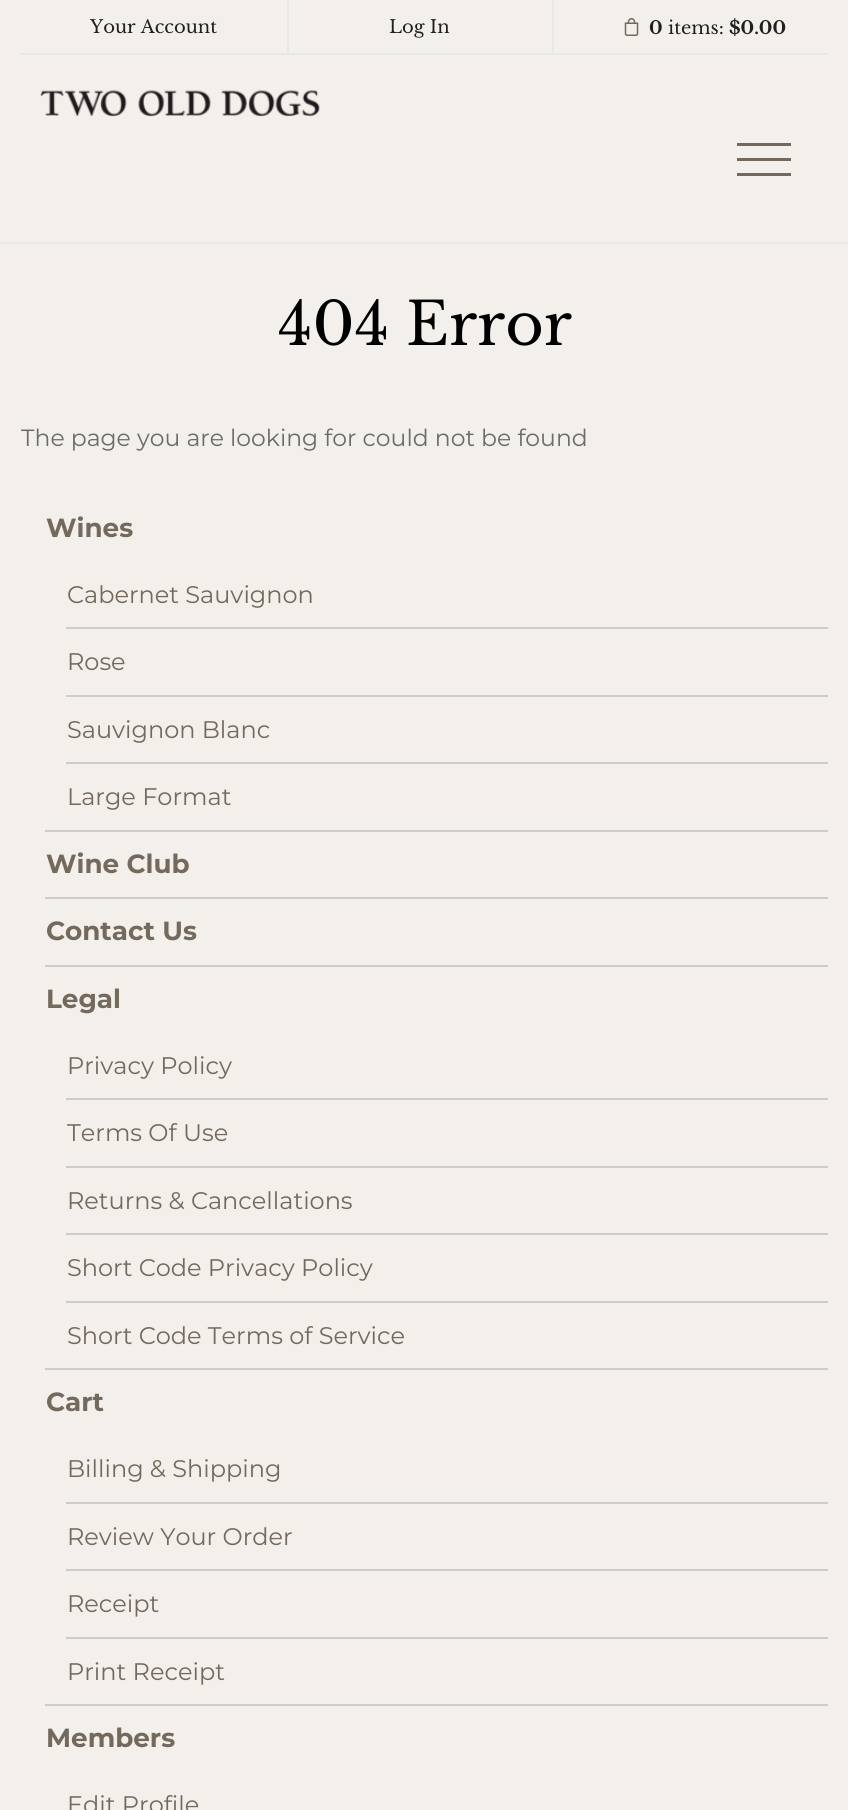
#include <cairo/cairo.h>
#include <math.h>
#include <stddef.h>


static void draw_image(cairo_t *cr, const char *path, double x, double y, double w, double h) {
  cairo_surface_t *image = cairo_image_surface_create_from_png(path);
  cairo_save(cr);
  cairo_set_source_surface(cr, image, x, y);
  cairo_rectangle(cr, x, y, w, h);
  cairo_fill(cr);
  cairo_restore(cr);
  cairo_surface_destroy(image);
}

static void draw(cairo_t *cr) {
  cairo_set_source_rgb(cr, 243 / 255.0, 239 / 255.0, 235 / 255.0);
  cairo_paint(cr);
  cairo_set_source_rgb(cr, 232 / 255.0, 232 / 255.0, 232 / 255.0);
  cairo_rectangle(cr, 0, 242, 848, 2);
  cairo_fill(cr);
  cairo_rectangle(cr, 21, 53, 807, 2);
  cairo_fill(cr);
  cairo_rectangle(cr, 287, 0, 2, 54);
  cairo_fill(cr);
  cairo_rectangle(cr, 552, 0, 2, 54);
  cairo_fill(cr);
  draw_image(cr, "images/1.png", 624, 18, 15, 18);
  draw_image(cr, "images/2.png", 40, 90, 280, 27);
  cairo_set_source_rgb(cr, 115 / 255.0, 105 / 255.0, 92 / 255.0);
  cairo_rectangle(cr, 737, 158, 54, 3);
  cairo_fill(cr);
  cairo_rectangle(cr, 737, 143, 54, 3);
  cairo_fill(cr);
  cairo_rectangle(cr, 737, 173, 54, 3);
  cairo_fill(cr);
  cairo_set_source_rgb(cr, 204 / 255.0, 204 / 255.0, 204 / 255.0);
  cairo_rectangle(cr, 45, 830, 783, 2);
  cairo_fill(cr);
  cairo_rectangle(cr, 66, 627, 762, 2);
  cairo_fill(cr);
  cairo_rectangle(cr, 66, 695, 762, 2);
  cairo_fill(cr);
  cairo_rectangle(cr, 66, 762, 762, 2);
  cairo_fill(cr);
  cairo_rectangle(cr, 45, 897, 783, 2);
  cairo_fill(cr);
  cairo_rectangle(cr, 45, 965, 783, 2);
  cairo_fill(cr);
  cairo_rectangle(cr, 45, 1368, 783, 2);
  cairo_fill(cr);
  cairo_rectangle(cr, 66, 1098, 762, 2);
  cairo_fill(cr);
  cairo_rectangle(cr, 66, 1166, 762, 2);
  cairo_fill(cr);
  cairo_rectangle(cr, 66, 1233, 762, 2);
  cairo_fill(cr);
  cairo_rectangle(cr, 66, 1301, 762, 2);
  cairo_fill(cr);
  cairo_rectangle(cr, 45, 1704, 783, 2);
  cairo_fill(cr);
  cairo_rectangle(cr, 66, 1502, 762, 2);
  cairo_fill(cr);
  cairo_rectangle(cr, 66, 1569, 762, 2);
  cairo_fill(cr);
  cairo_rectangle(cr, 66, 1637, 762, 2);
  cairo_fill(cr);
  cairo_select_font_face(cr, "Libre Baskerville", CAIRO_FONT_SLANT_NORMAL, CAIRO_FONT_WEIGHT_NORMAL);
  cairo_set_font_size(cr, 18);
  cairo_set_source_rgb(cr, 32 / 255.0, 32 / 255.0, 32 / 255.0);
  cairo_move_to(cr, 90, 33);
  cairo_show_text(cr, "Your Account");
  cairo_move_to(cr, 389, 33);
  cairo_show_text(cr, "Log In");
  cairo_select_font_face(cr, "Libre Baskerville", CAIRO_FONT_SLANT_NORMAL, CAIRO_FONT_WEIGHT_BOLD);
  cairo_move_to(cr, 649, 34);
  cairo_show_text(cr, "0");
  cairo_select_font_face(cr, "Libre Baskerville", CAIRO_FONT_SLANT_NORMAL, CAIRO_FONT_WEIGHT_NORMAL);
  cairo_move_to(cr, 668, 34);
  cairo_show_text(cr, "items:");
  cairo_select_font_face(cr, "Libre Baskerville", CAIRO_FONT_SLANT_NORMAL, CAIRO_FONT_WEIGHT_BOLD);
  cairo_move_to(cr, 729, 34);
  cairo_show_text(cr, "$0.00");
  cairo_select_font_face(cr, "Libre Baskerville", CAIRO_FONT_SLANT_NORMAL, CAIRO_FONT_WEIGHT_NORMAL);
  cairo_set_font_size(cr, 59);
  cairo_set_source_rgb(cr, 0, 0, 0);
  cairo_move_to(cr, 278, 345);
  cairo_show_text(cr, "404 Error");
  cairo_select_font_face(cr, "Montserrat", CAIRO_FONT_SLANT_NORMAL, CAIRO_FONT_WEIGHT_NORMAL);
  cairo_set_font_size(cr, 23.5);
  cairo_set_source_rgb(cr, 107 / 255.0, 107 / 255.0, 107 / 255.0);
  cairo_move_to(cr, 21, 446);
  cairo_show_text(cr, "The page you are looking for could not be found");
  cairo_select_font_face(cr, "Montserrat", CAIRO_FONT_SLANT_NORMAL, CAIRO_FONT_WEIGHT_BOLD);
  cairo_set_font_size(cr, 26.25);
  cairo_set_source_rgb(cr, 115 / 255.0, 105 / 255.0, 92 / 255.0);
  cairo_move_to(cr, 46, 537);
  cairo_show_text(cr, "Wines");
  cairo_select_font_face(cr, "Montserrat", CAIRO_FONT_SLANT_NORMAL, CAIRO_FONT_WEIGHT_NORMAL);
  cairo_set_font_size(cr, 24);
  cairo_move_to(cr, 67, 603);
  cairo_show_text(cr, "Cabernet Sauvignon");
  cairo_move_to(cr, 67, 670);
  cairo_show_text(cr, "Rose");
  cairo_move_to(cr, 67, 738);
  cairo_show_text(cr, "Sauvignon Blanc");
  cairo_move_to(cr, 67, 805);
  cairo_show_text(cr, "Large Format");
  cairo_select_font_face(cr, "Montserrat", CAIRO_FONT_SLANT_NORMAL, CAIRO_FONT_WEIGHT_BOLD);
  cairo_set_font_size(cr, 26.25);
  cairo_move_to(cr, 46, 873);
  cairo_show_text(cr, "Wine Club");
  cairo_move_to(cr, 46, 940);
  cairo_show_text(cr, "Contact Us");
  cairo_move_to(cr, 46, 1008);
  cairo_show_text(cr, "Legal");
  cairo_select_font_face(cr, "Montserrat", CAIRO_FONT_SLANT_NORMAL, CAIRO_FONT_WEIGHT_NORMAL);
  cairo_set_font_size(cr, 24);
  cairo_move_to(cr, 67, 1074);
  cairo_show_text(cr, "Privacy Policy");
  cairo_move_to(cr, 67, 1141);
  cairo_show_text(cr, "Terms Of Use");
  cairo_move_to(cr, 67, 1209);
  cairo_show_text(cr, "Returns & Cancellations");
  cairo_move_to(cr, 67, 1276);
  cairo_show_text(cr, "Short Code Privacy Policy");
  cairo_move_to(cr, 67, 1344);
  cairo_show_text(cr, "Short Code Terms of Service");
  cairo_select_font_face(cr, "Montserrat", CAIRO_FONT_SLANT_NORMAL, CAIRO_FONT_WEIGHT_BOLD);
  cairo_set_font_size(cr, 26.25);
  cairo_move_to(cr, 46, 1411);
  cairo_show_text(cr, "Cart");
  cairo_select_font_face(cr, "Montserrat", CAIRO_FONT_SLANT_NORMAL, CAIRO_FONT_WEIGHT_NORMAL);
  cairo_set_font_size(cr, 24);
  cairo_move_to(cr, 67, 1477);
  cairo_show_text(cr, "Billing & Shipping");
  cairo_move_to(cr, 67, 1545);
  cairo_show_text(cr, "Review Your Order");
  cairo_move_to(cr, 67, 1612);
  cairo_show_text(cr, "Receipt");
  cairo_move_to(cr, 67, 1680);
  cairo_show_text(cr, "Print Receipt");
  cairo_select_font_face(cr, "Montserrat", CAIRO_FONT_SLANT_NORMAL, CAIRO_FONT_WEIGHT_BOLD);
  cairo_set_font_size(cr, 26.25);
  cairo_move_to(cr, 46, 1747);
  cairo_show_text(cr, "Members");
  cairo_select_font_face(cr, "Montserrat", CAIRO_FONT_SLANT_NORMAL, CAIRO_FONT_WEIGHT_NORMAL);
  cairo_set_font_size(cr, 24);
  cairo_move_to(cr, 67, 1813);
  cairo_show_text(cr, "Edit Profile");
}

int main(void) {
  cairo_surface_t *surface = cairo_image_surface_create(CAIRO_FORMAT_RGB24, 848, 1810);
  cairo_t *cr = cairo_create(surface);
  cairo_font_options_t *options = cairo_font_options_create();
  cairo_font_options_set_hint_metrics(options, CAIRO_HINT_METRICS_OFF);
  cairo_font_options_set_hint_style(options, CAIRO_HINT_STYLE_NONE);
  cairo_set_font_options(cr, options);
  cairo_set_miter_limit(cr, 4);
  draw(cr);
  cairo_surface_write_to_png(surface, "out.png");
  cairo_font_options_destroy(options);
  cairo_destroy(cr);
  cairo_surface_destroy(surface);
  return 0;
}
